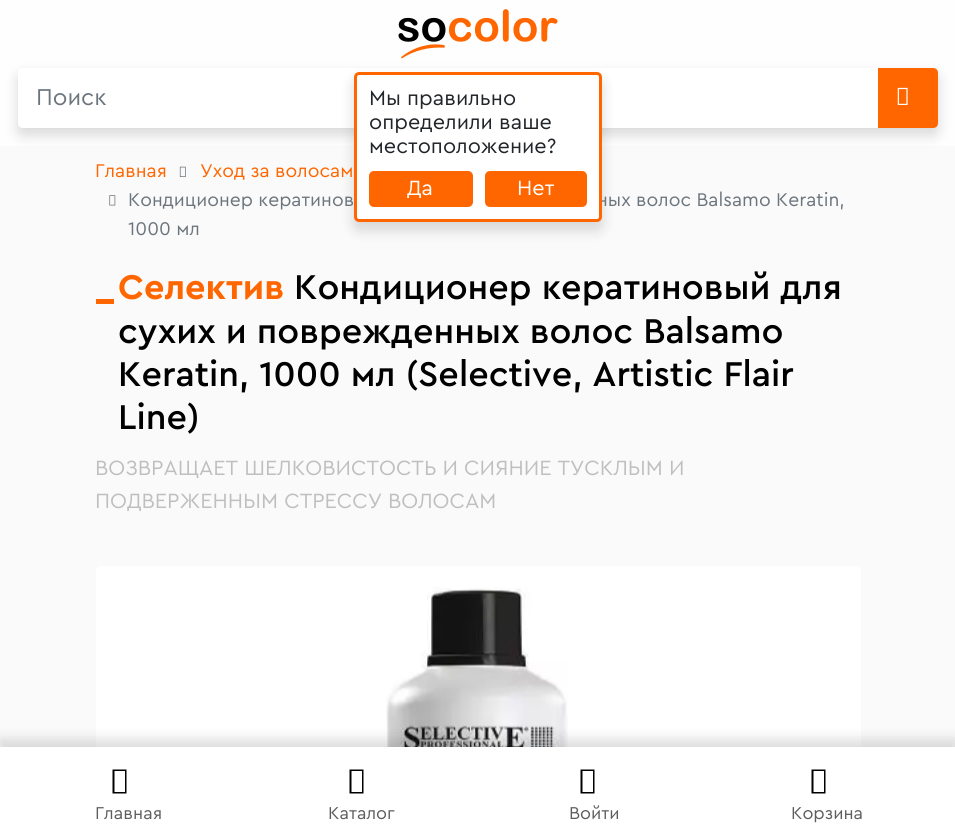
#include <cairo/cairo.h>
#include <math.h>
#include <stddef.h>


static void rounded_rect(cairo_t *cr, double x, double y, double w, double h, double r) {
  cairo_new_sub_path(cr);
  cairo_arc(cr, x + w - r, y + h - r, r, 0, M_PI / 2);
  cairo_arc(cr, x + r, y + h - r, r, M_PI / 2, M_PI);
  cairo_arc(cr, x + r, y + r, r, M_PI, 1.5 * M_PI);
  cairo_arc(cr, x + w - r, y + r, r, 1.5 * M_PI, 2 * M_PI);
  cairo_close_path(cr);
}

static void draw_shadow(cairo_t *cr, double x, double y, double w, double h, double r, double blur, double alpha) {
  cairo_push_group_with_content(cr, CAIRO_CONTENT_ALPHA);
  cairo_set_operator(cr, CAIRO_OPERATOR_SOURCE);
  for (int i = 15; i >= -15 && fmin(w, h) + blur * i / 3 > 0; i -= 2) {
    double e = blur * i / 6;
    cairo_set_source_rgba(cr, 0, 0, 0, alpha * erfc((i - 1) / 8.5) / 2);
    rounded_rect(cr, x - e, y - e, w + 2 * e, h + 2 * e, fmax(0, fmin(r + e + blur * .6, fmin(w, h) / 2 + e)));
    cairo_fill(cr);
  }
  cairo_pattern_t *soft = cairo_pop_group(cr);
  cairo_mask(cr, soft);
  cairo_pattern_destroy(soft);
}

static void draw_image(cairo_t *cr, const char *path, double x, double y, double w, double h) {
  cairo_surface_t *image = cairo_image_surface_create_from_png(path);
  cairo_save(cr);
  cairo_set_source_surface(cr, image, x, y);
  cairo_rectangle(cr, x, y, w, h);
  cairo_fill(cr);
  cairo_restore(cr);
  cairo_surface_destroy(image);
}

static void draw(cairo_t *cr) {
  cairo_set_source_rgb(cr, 250 / 255.0, 250 / 255.0, 250 / 255.0);
  cairo_paint(cr);
  cairo_set_source_rgb(cr, 254 / 255.0, 254 / 255.0, 254 / 255.0);
  cairo_rectangle(cr, 0, 0, 955, 146);
  cairo_fill(cr);
  draw_image(cr, "images/1.png", 398, 9, 160, 50);
  cairo_set_source_rgb(cr, 0, 0, 0);
  draw_shadow(cr, 18, 75, 920, 60, 5, 7, 0.15);
  cairo_set_source_rgb(cr, 1, 1, 1);
  cairo_new_path(cr);
  cairo_move_to(cr, 23, 68);
  cairo_line_to(cr, 878, 68);
  cairo_line_to(cr, 878, 128);
  cairo_line_to(cr, 23, 128);
  cairo_curve_to(cr, 20, 128, 18, 126, 18, 123);
  cairo_line_to(cr, 18, 73);
  cairo_curve_to(cr, 18, 70, 20, 68, 23, 68);
  cairo_close_path(cr);
  cairo_fill(cr);
  cairo_set_source_rgb(cr, 1, 102 / 255.0, 0);
  cairo_new_path(cr);
  cairo_move_to(cr, 878, 68);
  cairo_line_to(cr, 933, 68);
  cairo_curve_to(cr, 936, 68, 938, 70, 938, 73);
  cairo_line_to(cr, 938, 123);
  cairo_curve_to(cr, 938, 126, 936, 128, 933, 128);
  cairo_line_to(cr, 878, 128);
  cairo_close_path(cr);
  cairo_fill(cr);
  draw_image(cr, "images/2.png", 897, 87, 11, 18);
  cairo_set_source_rgb(cr, 0, 0, 0);
  draw_shadow(cr, 354, 80, 248, 150, 5, 7, 0.15);
  draw_image(cr, "images/3.png", 179, 166, 7, 11);
  draw_image(cr, "images/4.png", 109, 195, 7, 11);
  cairo_set_source_rgb(cr, 1, 102 / 255.0, 0);
  cairo_rectangle(cr, 96, 299, 18, 5);
  cairo_fill(cr);
  cairo_set_source_rgb(cr, 1, 1, 1);
  rounded_rect(cr, 96, 566, 765, 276, 5);
  cairo_fill(cr);
  draw_image(cr, "images/5.png", 386, 587, 182, 160);
  cairo_set_source_rgb(cr, 0, 0, 0);
  draw_shadow(cr, 0, 740, 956, 90, 0, 7, 0.15);
  cairo_set_source_rgb(cr, 1, 1, 1);
  cairo_rectangle(cr, 0, 747, 955, 90);
  cairo_fill(cr);
  cairo_set_source_rgb(cr, 0, 0, 0);
  cairo_new_path(cr);
  cairo_move_to(cr, 112.5, 793.5);
  cairo_line_to(cr, 112.5, 769.5);
  cairo_line_to(cr, 126.5, 769.5);
  cairo_line_to(cr, 126.5, 793.5);
  cairo_close_path(cr);
  cairo_move_to(cr, 114.5, 792);
  cairo_line_to(cr, 125, 792);
  cairo_line_to(cr, 125, 771);
  cairo_line_to(cr, 114.5, 771);
  cairo_close_path(cr);
  cairo_fill(cr);
  cairo_new_path(cr);
  cairo_move_to(cr, 349.5, 793.5);
  cairo_line_to(cr, 349.5, 769.5);
  cairo_line_to(cr, 363.5, 769.5);
  cairo_line_to(cr, 363.5, 793.5);
  cairo_close_path(cr);
  cairo_move_to(cr, 351.5, 792);
  cairo_line_to(cr, 362, 792);
  cairo_line_to(cr, 362, 771);
  cairo_line_to(cr, 351.5, 771);
  cairo_close_path(cr);
  cairo_fill(cr);
  cairo_new_path(cr);
  cairo_move_to(cr, 580.5, 793.5);
  cairo_line_to(cr, 580.5, 769.5);
  cairo_line_to(cr, 594.5, 769.5);
  cairo_line_to(cr, 594.5, 793.5);
  cairo_close_path(cr);
  cairo_move_to(cr, 582.5, 792);
  cairo_line_to(cr, 593, 792);
  cairo_line_to(cr, 593, 771);
  cairo_line_to(cr, 582.5, 771);
  cairo_close_path(cr);
  cairo_fill(cr);
  cairo_new_path(cr);
  cairo_move_to(cr, 811.5, 793.5);
  cairo_line_to(cr, 811.5, 769.5);
  cairo_line_to(cr, 825.5, 769.5);
  cairo_line_to(cr, 825.5, 793.5);
  cairo_close_path(cr);
  cairo_move_to(cr, 813.5, 792);
  cairo_line_to(cr, 824, 792);
  cairo_line_to(cr, 824, 771);
  cairo_line_to(cr, 813.5, 771);
  cairo_close_path(cr);
  cairo_fill(cr);
  cairo_select_font_face(cr, "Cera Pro", CAIRO_FONT_SLANT_NORMAL, CAIRO_FONT_WEIGHT_NORMAL);
  cairo_set_font_size(cr, 24);
  cairo_set_source_rgb(cr, 108 / 255.0, 117 / 255.0, 125 / 255.0);
  cairo_move_to(cr, 36, 105);
  cairo_show_text(cr, "Поиск");
  cairo_set_font_size(cr, 19.25);
  cairo_set_source_rgb(cr, 1, 102 / 255.0, 0);
  cairo_move_to(cr, 95, 177);
  cairo_show_text(cr, "Главная");
  cairo_move_to(cr, 200, 177);
  cairo_show_text(cr, "Уход за волосам");
  cairo_set_source_rgb(cr, 108 / 255.0, 117 / 255.0, 125 / 255.0);
  cairo_move_to(cr, 128, 206);
  cairo_show_text(cr, "Кондиционер кератинов");
  cairo_move_to(cr, 597, 206);
  cairo_show_text(cr, "ных волос Balsamo Keratin,");
  cairo_set_source_rgb(cr, 1, 1, 1);
  rounded_rect(cr, 355.5, 73.5, 245, 147, 3.5);
  cairo_fill_preserve(cr);
  cairo_set_source_rgb(cr, 1, 102 / 255.0, 0);
  cairo_set_line_width(cr, 3);
  cairo_stroke(cr);
  rounded_rect(cr, 485, 171, 102, 36, 5);
  cairo_fill(cr);
  cairo_set_font_size(cr, 21.6);
  cairo_set_source_rgb(cr, 1, 1, 1);
  cairo_move_to(cr, 517, 195);
  cairo_show_text(cr, "Нет");
  cairo_set_source_rgb(cr, 1, 102 / 255.0, 0);
  rounded_rect(cr, 369, 171, 104, 36, 5);
  cairo_fill(cr);
  cairo_set_source_rgb(cr, 1, 1, 1);
  cairo_move_to(cr, 407, 195);
  cairo_show_text(cr, "Да");
  cairo_set_source_rgb(cr, 33 / 255.0, 37 / 255.0, 41 / 255.0);
  cairo_move_to(cr, 369, 153);
  cairo_show_text(cr, "местоположение?");
  cairo_move_to(cr, 369, 129);
  cairo_show_text(cr, "определили ваше");
  cairo_move_to(cr, 369, 105);
  cairo_show_text(cr, "Мы правильно");
  cairo_set_font_size(cr, 19.25);
  cairo_set_source_rgb(cr, 108 / 255.0, 117 / 255.0, 125 / 255.0);
  cairo_move_to(cr, 128, 235);
  cairo_show_text(cr, "1000 мл");
  cairo_select_font_face(cr, "Cera Pro", CAIRO_FONT_SLANT_NORMAL, CAIRO_FONT_WEIGHT_BOLD);
  cairo_set_font_size(cr, 36);
  cairo_set_source_rgb(cr, 1, 102 / 255.0, 0);
  cairo_move_to(cr, 118, 299);
  cairo_show_text(cr, "Селектив");
  cairo_select_font_face(cr, "Cera Pro Medium", CAIRO_FONT_SLANT_NORMAL, CAIRO_FONT_WEIGHT_NORMAL);
  cairo_set_source_rgb(cr, 0, 0, 0);
  cairo_move_to(cr, 294, 299);
  cairo_show_text(cr, "Кондиционер кератиновый для");
  cairo_move_to(cr, 118, 343);
  cairo_show_text(cr, "сухих и поврежденных волос Balsamo");
  cairo_move_to(cr, 118, 386);
  cairo_show_text(cr, "Keratin, 1000 мл (Selective, Artistic Flair");
  cairo_move_to(cr, 118, 429);
  cairo_show_text(cr, "Line)");
  cairo_select_font_face(cr, "Cera Pro", CAIRO_FONT_SLANT_NORMAL, CAIRO_FONT_WEIGHT_NORMAL);
  cairo_set_font_size(cr, 21.6);
  cairo_set_source_rgb(cr, 191 / 255.0, 191 / 255.0, 191 / 255.0);
  cairo_move_to(cr, 95, 475);
  cairo_show_text(cr, "ВОЗВРАЩАЕТ ШЕЛКОВИСТОСТЬ И СИЯНИЕ ТУСКЛЫМ И");
  cairo_move_to(cr, 95, 508);
  cairo_show_text(cr, "ПОДВЕРЖЕННЫМ СТРЕССУ ВОЛОСАМ");
  cairo_set_font_size(cr, 18);
  cairo_set_source_rgb(cr, 93 / 255.0, 93 / 255.0, 93 / 255.0);
  cairo_move_to(cr, 95, 819);
  cairo_show_text(cr, "Главная");
  cairo_move_to(cr, 328, 819);
  cairo_show_text(cr, "Каталог");
  cairo_move_to(cr, 569, 819);
  cairo_show_text(cr, "Войти");
  cairo_move_to(cr, 791, 819);
  cairo_show_text(cr, "Корзина");
}

int main(void) {
  cairo_surface_t *surface = cairo_image_surface_create(CAIRO_FORMAT_RGB24, 955, 837);
  cairo_t *cr = cairo_create(surface);
  cairo_font_options_t *options = cairo_font_options_create();
  cairo_font_options_set_hint_metrics(options, CAIRO_HINT_METRICS_OFF);
  cairo_font_options_set_hint_style(options, CAIRO_HINT_STYLE_NONE);
  cairo_set_font_options(cr, options);
  cairo_set_miter_limit(cr, 4);
  draw(cr);
  cairo_surface_write_to_png(surface, "out.png");
  cairo_font_options_destroy(options);
  cairo_destroy(cr);
  cairo_surface_destroy(surface);
  return 0;
}
